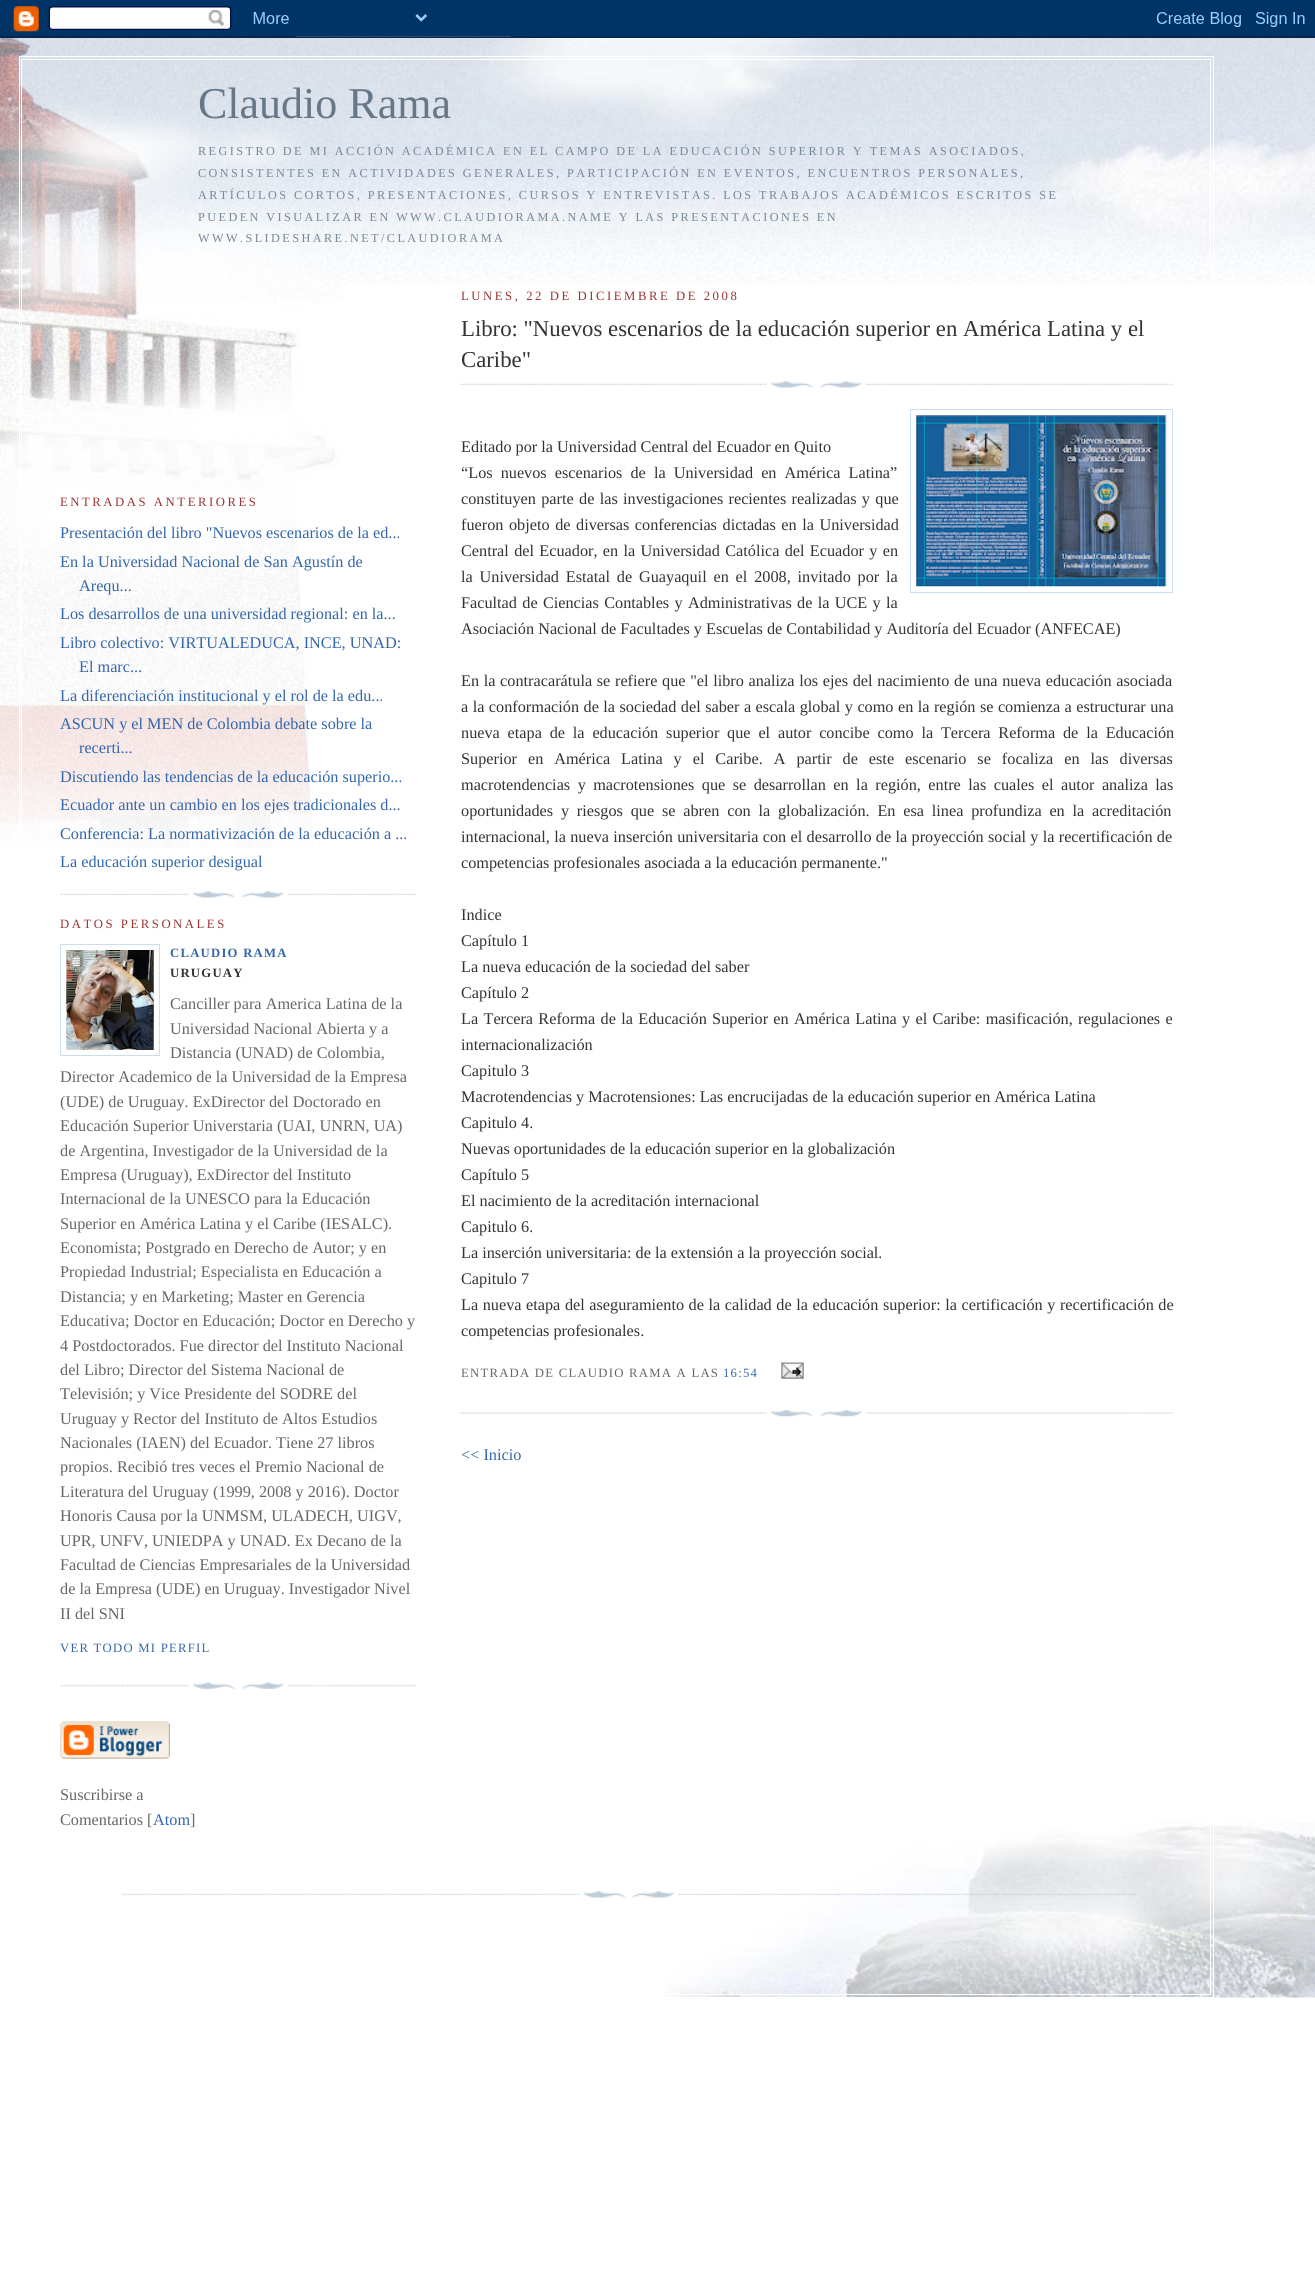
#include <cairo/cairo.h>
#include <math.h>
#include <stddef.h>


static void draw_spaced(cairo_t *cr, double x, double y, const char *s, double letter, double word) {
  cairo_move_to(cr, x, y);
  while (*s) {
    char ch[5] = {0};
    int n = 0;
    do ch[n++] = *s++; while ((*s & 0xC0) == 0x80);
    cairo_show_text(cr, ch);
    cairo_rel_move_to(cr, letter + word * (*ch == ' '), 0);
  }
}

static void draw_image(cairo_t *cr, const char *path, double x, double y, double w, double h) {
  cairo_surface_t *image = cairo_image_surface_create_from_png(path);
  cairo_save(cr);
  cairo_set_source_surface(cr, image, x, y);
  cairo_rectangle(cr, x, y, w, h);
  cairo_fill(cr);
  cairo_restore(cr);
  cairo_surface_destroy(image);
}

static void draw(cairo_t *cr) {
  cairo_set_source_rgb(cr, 1, 1, 1);
  cairo_paint(cr);
  draw_image(cr, "images/1.png", 665, 1822, 650, 176);
  draw_image(cr, "images/2.png", 0, 0, 1315, 38);
  draw_image(cr, "images/3.png", 342, 38, 973, 247);
  draw_image(cr, "images/4.png", 0, 38, 343, 810);
  draw_image(cr, "images/5.png", 1040, 131, 275, 107);
  draw_image(cr, "images/6.png", 439, 38, 437, 93);
  cairo_rectangle(cr, 19.5, 56.5, 1194, 1941);
  cairo_set_source_rgb(cr, 1, 1, 1);
  cairo_set_line_width(cr, 1);
  cairo_stroke(cr);
  cairo_rectangle(cr, 21.5, 59.5, 1189, 1935);
  cairo_stroke(cr);
  draw_image(cr, "images/7.png", 60, 891, 357, 7);
  draw_image(cr, "images/8.png", 60, 1682, 357, 7);
  cairo_rectangle(cr, 60.5, 944.5, 99, 111);
  cairo_set_source_rgb(cr, 204 / 255.0, 221 / 255.0, 238 / 255.0);
  cairo_stroke(cr);
  draw_image(cr, "images/9.png", 66, 950, 88, 100);
  draw_image(cr, "images/10.png", 60, 1721, 110, 38);
  draw_image(cr, "images/11.png", 460, 381, 713, 7);
  cairo_rectangle(cr, 910.5, 409.5, 262, 183);
  cairo_stroke(cr);
  draw_image(cr, "images/12.png", 916, 415, 251, 172);
  draw_image(cr, "images/13.png", 781, 1362, 23, 17);
  draw_image(cr, "images/14.png", 460, 1410, 713, 7);
  draw_image(cr, "images/15.png", 122, 1891, 1013, 7);
  cairo_select_font_face(cr, "Liberation Serif", CAIRO_FONT_SLANT_NORMAL, CAIRO_FONT_WEIGHT_NORMAL);
  cairo_set_font_size(cr, 44);
  cairo_set_source_rgb(cr, 102 / 255.0, 119 / 255.0, 136 / 255.0);
  cairo_move_to(cr, 198, 118);
  cairo_show_text(cr, "Claudio Rama");
  cairo_set_font_size(cr, 12.2);
  cairo_set_source_rgb(cr, 119 / 255.0, 136 / 255.0, 153 / 255.0);
  draw_spaced(cr, 198, 155, "REGISTRO DE MI ACCIÓN ACADÉMICA EN EL CAMPO DE LA EDUCACIÓN SUPERIOR Y TEMAS ASOCIADOS,", 2.45, 0);
  draw_spaced(cr, 198, 177, "CONSISTENTES EN ACTIVIDADES GENERALES, PARTICIPACIÓN EN EVENTOS, ENCUENTROS PERSONALES,", 2.45, 0);
  draw_spaced(cr, 198, 199, "ARTÍCULOS CORTOS, PRESENTACIONES, CURSOS Y ENTREVISTAS. LOS TRABAJOS ACADÉMICOS ESCRITOS SE", 2.45, 0);
  draw_spaced(cr, 198, 221, "PUEDEN VISUALIZAR EN WWW.CLAUDIORAMA.NAME Y LAS PRESENTACIONES EN", 2.45, 0);
  draw_spaced(cr, 198, 242, "WWW.SLIDESHARE.NET/CLAUDIORAMA", 2.45, 0);
  cairo_set_font_size(cr, 12.7);
  cairo_set_source_rgb(cr, 153 / 255.0, 51 / 255.0, 51 / 255.0);
  draw_spaced(cr, 60, 506, "ENTRADAS ANTERIORES", 2.55, 0);
  cairo_set_font_size(cr, 16.25);
  cairo_set_source_rgb(cr, 51 / 255.0, 102 / 255.0, 170 / 255.0);
  cairo_move_to(cr, 60, 538);
  cairo_show_text(cr, "Presentación del libro \"Nuevos escenarios de la ed...");
  cairo_move_to(cr, 60, 567);
  cairo_show_text(cr, "En la Universidad Nacional de San Agustín de");
  cairo_move_to(cr, 79, 591);
  cairo_show_text(cr, "Arequ...");
  cairo_move_to(cr, 60, 619);
  cairo_show_text(cr, "Los desarrollos de una universidad regional: en la...");
  cairo_move_to(cr, 60, 648);
  cairo_show_text(cr, "Libro colectivo: VIRTUALEDUCA, INCE, UNAD:");
  cairo_move_to(cr, 79, 672);
  cairo_show_text(cr, "El marc...");
  cairo_move_to(cr, 60, 701);
  cairo_show_text(cr, "La diferenciación institucional y el rol de la edu...");
  cairo_move_to(cr, 60, 729);
  cairo_show_text(cr, "ASCUN y el MEN de Colombia debate sobre la");
  cairo_move_to(cr, 79, 753);
  cairo_show_text(cr, "recerti...");
  cairo_move_to(cr, 60, 782);
  cairo_show_text(cr, "Discutiendo las tendencias de la educación superio...");
  cairo_move_to(cr, 60, 810);
  cairo_show_text(cr, "Ecuador ante un cambio en los ejes tradicionales d...");
  cairo_move_to(cr, 60, 839);
  cairo_show_text(cr, "Conferencia: La normativización de la educación a ...");
  cairo_move_to(cr, 60, 867);
  cairo_show_text(cr, "La educación superior desigual");
  cairo_set_font_size(cr, 12.7);
  cairo_set_source_rgb(cr, 153 / 255.0, 51 / 255.0, 51 / 255.0);
  draw_spaced(cr, 60, 928, "DATOS PERSONALES", 2.55, 0);
  cairo_select_font_face(cr, "Liberation Serif", CAIRO_FONT_SLANT_NORMAL, CAIRO_FONT_WEIGHT_BOLD);
  cairo_set_source_rgb(cr, 51 / 255.0, 102 / 255.0, 170 / 255.0);
  draw_spaced(cr, 170, 957, "CLAUDIO RAMA", 1.25, 0);
  cairo_set_source_rgb(cr, 51 / 255.0, 51 / 255.0, 51 / 255.0);
  draw_spaced(cr, 170, 977, "URUGUAY", 1.25, 0);
  cairo_select_font_face(cr, "Liberation Serif", CAIRO_FONT_SLANT_NORMAL, CAIRO_FONT_WEIGHT_NORMAL);
  cairo_set_font_size(cr, 16.25);
  cairo_set_source_rgb(cr, 102 / 255.0, 102 / 255.0, 102 / 255.0);
  cairo_move_to(cr, 170, 1009);
  cairo_show_text(cr, "Canciller para America Latina de la");
  cairo_move_to(cr, 170, 1034);
  cairo_show_text(cr, "Universidad Nacional Abierta y a");
  cairo_move_to(cr, 170, 1058);
  cairo_show_text(cr, "Distancia (UNAD) de Colombia,");
  cairo_move_to(cr, 60, 1082);
  cairo_show_text(cr, "Director Academico de la Universidad de la Empresa");
  cairo_move_to(cr, 60, 1107);
  cairo_show_text(cr, "(UDE) de Uruguay. ExDirector del Doctorado en");
  cairo_move_to(cr, 60, 1131);
  cairo_show_text(cr, "Educación Superior Universtaria (UAI, UNRN, UA)");
  cairo_move_to(cr, 60, 1156);
  cairo_show_text(cr, "de Argentina, Investigador de la Universidad de la");
  cairo_move_to(cr, 60, 1180);
  cairo_show_text(cr, "Empresa (Uruguay), ExDirector del Instituto");
  cairo_move_to(cr, 60, 1204);
  cairo_show_text(cr, "Internacional de la UNESCO para la Educación");
  cairo_move_to(cr, 60, 1229);
  cairo_show_text(cr, "Superior en América Latina y el Caribe (IESALC).");
  cairo_move_to(cr, 60, 1253);
  cairo_show_text(cr, "Economista; Postgrado en Derecho de Autor; y en");
  cairo_move_to(cr, 60, 1277);
  cairo_show_text(cr, "Propiedad Industrial; Especialista en Educación a");
  cairo_move_to(cr, 60, 1302);
  cairo_show_text(cr, "Distancia; y en Marketing; Master en Gerencia");
  cairo_move_to(cr, 60, 1326);
  cairo_show_text(cr, "Educativa; Doctor en Educación; Doctor en Derecho y");
  cairo_move_to(cr, 60, 1351);
  cairo_show_text(cr, "4 Postdoctorados. Fue director del Instituto Nacional");
  cairo_move_to(cr, 60, 1375);
  cairo_show_text(cr, "del Libro; Director del Sistema Nacional de");
  cairo_move_to(cr, 60, 1399);
  cairo_show_text(cr, "Televisión; y Vice Presidente del SODRE del");
  cairo_move_to(cr, 60, 1424);
  cairo_show_text(cr, "Uruguay y Rector del Instituto de Altos Estudios");
  cairo_move_to(cr, 60, 1448);
  cairo_show_text(cr, "Nacionales (IAEN) del Ecuador. Tiene 27 libros");
  cairo_move_to(cr, 60, 1472);
  cairo_show_text(cr, "propios. Recibió tres veces el Premio Nacional de");
  cairo_move_to(cr, 60, 1497);
  cairo_show_text(cr, "Literatura del Uruguay (1999, 2008 y 2016). Doctor");
  cairo_move_to(cr, 60, 1521);
  cairo_show_text(cr, "Honoris Causa por la UNMSM, ULADECH, UIGV,");
  cairo_move_to(cr, 60, 1546);
  cairo_show_text(cr, "UPR, UNFV, UNIEDPA y UNAD. Ex Decano de la");
  cairo_move_to(cr, 60, 1570);
  cairo_show_text(cr, "Facultad de Ciencias Empresariales de la Universidad");
  cairo_move_to(cr, 60, 1594);
  cairo_show_text(cr, "de la Empresa (UDE) en Uruguay. Investigador Nivel");
  cairo_move_to(cr, 60, 1619);
  cairo_show_text(cr, "II del SNI");
  cairo_set_font_size(cr, 12.7);
  cairo_set_source_rgb(cr, 51 / 255.0, 102 / 255.0, 170 / 255.0);
  draw_spaced(cr, 60, 1652, "VER TODO MI PERFIL", 1.25, 0);
  cairo_set_font_size(cr, 16.25);
  cairo_set_source_rgb(cr, 102 / 255.0, 102 / 255.0, 102 / 255.0);
  cairo_move_to(cr, 60, 1800);
  cairo_show_text(cr, "Suscribirse a");
  cairo_move_to(cr, 60, 1825);
  cairo_show_text(cr, "Comentarios [");
  cairo_set_source_rgb(cr, 51 / 255.0, 102 / 255.0, 170 / 255.0);
  cairo_move_to(cr, 153, 1825);
  cairo_show_text(cr, "Atom");
  cairo_set_source_rgb(cr, 102 / 255.0, 102 / 255.0, 102 / 255.0);
  cairo_move_to(cr, 190, 1825);
  cairo_show_text(cr, "]");
  cairo_set_font_size(cr, 12.7);
  cairo_set_source_rgb(cr, 153 / 255.0, 51 / 255.0, 51 / 255.0);
  draw_spaced(cr, 461, 300, "LUNES, 22 DE DICIEMBRE DE 2008", 2.55, 0);
  cairo_set_font_size(cr, 22.75);
  cairo_set_source_rgb(cr, 51 / 255.0, 51 / 255.0, 51 / 255.0);
  cairo_move_to(cr, 461, 336);
  cairo_show_text(cr, "Libro: \"Nuevos escenarios de la educación superior en América Latina y el");
  cairo_move_to(cr, 461, 367);
  cairo_show_text(cr, "Caribe\"");
  cairo_set_font_size(cr, 16.25);
  cairo_move_to(cr, 461, 452);
  cairo_show_text(cr, "Editado por la Universidad Central del Ecuador en Quito");
  draw_spaced(cr, 461, 478, "“Los nuevos escenarios de la Universidad en América Latina”", 0, 4);
  draw_spaced(cr, 461, 504, "constituyen parte de las investigaciones recientes realizadas y que", 0, 1.25);
  draw_spaced(cr, 461, 530, "fueron objeto de diversas conferencias dictadas en la Universidad", 0, 1.5);
  draw_spaced(cr, 461, 556, "Central del Ecuador, en la Universidad Católica del Ecuador y en", 0, 1.25);
  draw_spaced(cr, 461, 582, "la Universidad Estatal de Guayaquil en el 2008, invitado por la", 0, 2.75);
  draw_spaced(cr, 461, 608, "Facultad de Ciencias Contables y Administrativas de la UCE y la", 0, 1.25);
  cairo_move_to(cr, 461, 634);
  cairo_show_text(cr, "Asociación Nacional de Facultades y Escuelas de Contabilidad y Auditoría del Ecuador (ANFECAE)");
  draw_spaced(cr, 461, 686, "En la contracarátula se refiere que \"el libro analiza los ejes del nacimiento de una nueva educación asociada", 0, 0.6);
  draw_spaced(cr, 461, 712, "a la conformación de la sociedad del saber a escala global y como en la región se comienza a estructurar una", 0, 0.4);
  draw_spaced(cr, 461, 738, "nueva etapa de la educación superior que el autor concibe como la Tercera Reforma de la Educación", 0, 3.75);
  draw_spaced(cr, 461, 764, "Superior en América Latina y el Caribe. A partir de este escenario se focaliza en las diversas", 0, 6.9);
  draw_spaced(cr, 461, 790, "macrotendencias y macrotensiones que se desarrollan en la región, entre las cuales el autor analiza las", 0, 3.4);
  draw_spaced(cr, 461, 816, "oportunidades y riesgos que se abren con la globalización. En esa linea profundiza en la acreditación", 0, 3.75);
  draw_spaced(cr, 461, 842, "internacional, la nueva inserción universitaria con el desarrollo de la proyección social y la recertificación de", 0, 0.25);
  cairo_move_to(cr, 461, 868);
  cairo_show_text(cr, "competencias profesionales asociada a la educación permanente.\"");
  cairo_move_to(cr, 461, 920);
  cairo_show_text(cr, "Indice");
  cairo_move_to(cr, 461, 946);
  cairo_show_text(cr, "Capítulo 1");
  cairo_move_to(cr, 461, 972);
  cairo_show_text(cr, "La nueva educación de la sociedad del saber");
  cairo_move_to(cr, 461, 998);
  cairo_show_text(cr, "Capítulo 2");
  draw_spaced(cr, 461, 1024, "La Tercera Reforma de la Educación Superior en América Latina y el Caribe: masificación, regulaciones e", 0, 1.25);
  cairo_move_to(cr, 461, 1050);
  cairo_show_text(cr, "internacionalización");
  cairo_move_to(cr, 461, 1076);
  cairo_show_text(cr, "Capitulo 3");
  cairo_move_to(cr, 461, 1102);
  cairo_show_text(cr, "Macrotendencias y Macrotensiones: Las encrucijadas de la educación superior en América Latina");
  cairo_move_to(cr, 461, 1128);
  cairo_show_text(cr, "Capitulo 4.");
  cairo_move_to(cr, 461, 1154);
  cairo_show_text(cr, "Nuevas oportunidades de la educación superior en la globalización");
  cairo_move_to(cr, 461, 1180);
  cairo_show_text(cr, "Capítulo 5");
  cairo_move_to(cr, 461, 1206);
  cairo_show_text(cr, "El nacimiento de la acreditación internacional");
  cairo_move_to(cr, 461, 1232);
  cairo_show_text(cr, "Capitulo 6.");
  cairo_move_to(cr, 461, 1258);
  cairo_show_text(cr, "La inserción universitaria: de la extensión a la proyección social.");
  cairo_move_to(cr, 461, 1284);
  cairo_show_text(cr, "Capitulo 7");
  draw_spaced(cr, 461, 1310, "La nueva etapa del aseguramiento de la calidad de la educación superior: la certificación y recertificación de", 0, 0.5);
  cairo_move_to(cr, 461, 1336);
  cairo_show_text(cr, "competencias profesionales.");
  cairo_set_font_size(cr, 12.7);
  cairo_set_source_rgb(cr, 102 / 255.0, 102 / 255.0, 102 / 255.0);
  draw_spaced(cr, 461, 1377, "ENTRADA DE CLAUDIO RAMA A LAS", 1.25, 0);
  cairo_set_source_rgb(cr, 51 / 255.0, 102 / 255.0, 170 / 255.0);
  draw_spaced(cr, 723, 1377, "16:54", 1.25, 0);
  cairo_set_font_size(cr, 16.25);
  cairo_move_to(cr, 461, 1460);
  cairo_show_text(cr, "<< Inicio");
}

int main(void) {
  cairo_surface_t *surface = cairo_image_surface_create(CAIRO_FORMAT_RGB24, 1315, 2283);
  cairo_t *cr = cairo_create(surface);
  cairo_font_options_t *options = cairo_font_options_create();
  cairo_font_options_set_hint_metrics(options, CAIRO_HINT_METRICS_OFF);
  cairo_font_options_set_hint_style(options, CAIRO_HINT_STYLE_NONE);
  cairo_set_font_options(cr, options);
  cairo_set_miter_limit(cr, 4);
  draw(cr);
  cairo_surface_write_to_png(surface, "out.png");
  cairo_font_options_destroy(options);
  cairo_destroy(cr);
  cairo_surface_destroy(surface);
  return 0;
}
